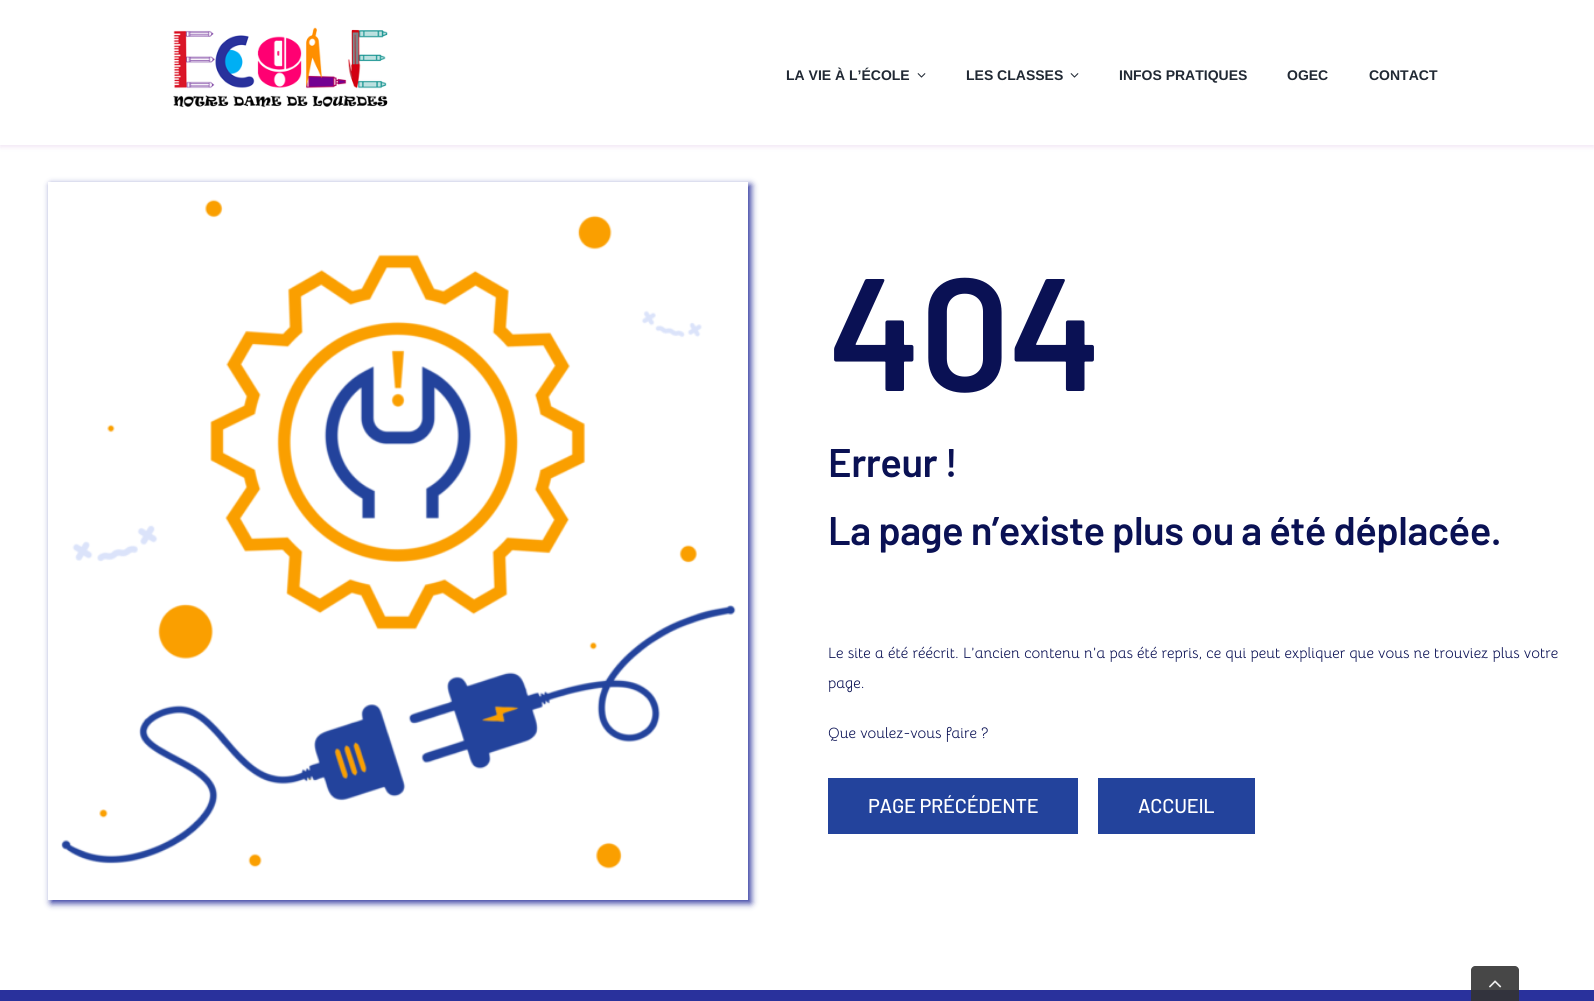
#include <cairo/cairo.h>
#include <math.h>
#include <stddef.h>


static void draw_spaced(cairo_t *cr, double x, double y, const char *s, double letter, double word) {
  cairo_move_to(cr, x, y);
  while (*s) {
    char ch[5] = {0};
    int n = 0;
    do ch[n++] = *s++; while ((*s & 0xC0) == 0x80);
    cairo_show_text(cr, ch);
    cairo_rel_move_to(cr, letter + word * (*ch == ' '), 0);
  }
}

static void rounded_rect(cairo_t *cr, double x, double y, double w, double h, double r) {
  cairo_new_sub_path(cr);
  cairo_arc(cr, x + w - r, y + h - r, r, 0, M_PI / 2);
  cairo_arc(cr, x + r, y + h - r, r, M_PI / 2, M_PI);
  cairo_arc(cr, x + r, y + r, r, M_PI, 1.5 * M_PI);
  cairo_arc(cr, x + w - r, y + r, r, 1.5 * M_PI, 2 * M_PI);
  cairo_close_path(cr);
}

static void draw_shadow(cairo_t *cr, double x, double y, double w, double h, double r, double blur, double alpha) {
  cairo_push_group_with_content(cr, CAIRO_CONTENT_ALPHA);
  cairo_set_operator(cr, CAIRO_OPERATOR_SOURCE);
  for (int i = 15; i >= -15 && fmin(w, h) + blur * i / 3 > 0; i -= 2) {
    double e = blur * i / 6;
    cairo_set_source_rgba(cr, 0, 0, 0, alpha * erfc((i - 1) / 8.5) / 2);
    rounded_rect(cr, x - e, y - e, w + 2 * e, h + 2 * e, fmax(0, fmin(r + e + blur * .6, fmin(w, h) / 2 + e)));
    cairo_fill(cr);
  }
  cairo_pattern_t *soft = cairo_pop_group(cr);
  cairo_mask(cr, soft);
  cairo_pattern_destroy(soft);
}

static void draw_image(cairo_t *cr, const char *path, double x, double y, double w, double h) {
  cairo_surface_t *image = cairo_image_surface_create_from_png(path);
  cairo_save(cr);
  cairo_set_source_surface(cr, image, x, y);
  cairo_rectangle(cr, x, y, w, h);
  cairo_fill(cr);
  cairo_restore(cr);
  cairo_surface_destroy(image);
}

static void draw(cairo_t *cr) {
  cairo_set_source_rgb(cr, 1, 1, 1);
  cairo_paint(cr);
  cairo_set_source_rgb(cr, 118 / 255.0, 0, 148 / 255.0);
  draw_shadow(cr, 0, 2, 1594, 145, 0, 2.5, 0.1);
  cairo_set_source_rgb(cr, 1, 1, 1);
  cairo_rectangle(cr, 0, 0, 1594, 145);
  cairo_fill(cr);
  draw_image(cr, "images/1.png", 173, 27, 215, 81);
  draw_image(cr, "images/2.png", 917, 73, 9, 5);
  draw_image(cr, "images/2.png", 1070, 73, 9, 5);
  cairo_save(cr);
  cairo_set_fill_rule(cr, CAIRO_FILL_RULE_EVEN_ODD);
  cairo_new_path(cr);
  cairo_move_to(cr, 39, 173);
  cairo_line_to(cr, 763, 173);
  cairo_line_to(cr, 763, 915);
  cairo_line_to(cr, 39, 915);
  cairo_close_path(cr);
  cairo_move_to(cr, 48, 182);
  cairo_line_to(cr, 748, 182);
  cairo_line_to(cr, 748, 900);
  cairo_line_to(cr, 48, 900);
  cairo_close_path(cr);
  cairo_clip(cr);
  cairo_set_source_rgb(cr, 41 / 255.0, 49 / 255.0, 156 / 255.0);
  draw_shadow(cr, 51, 185, 700, 718, 0, 3.5, 1);
  cairo_restore(cr);
  draw_image(cr, "images/3.png", 61, 199, 675, 670);
  cairo_set_source_rgb(cr, 35 / 255.0, 67 / 255.0, 156 / 255.0);
  cairo_rectangle(cr, 828, 778, 250, 56);
  cairo_fill(cr);
  cairo_rectangle(cr, 1098, 778, 157, 56);
  cairo_fill(cr);
  cairo_set_source_rgb(cr, 41 / 255.0, 49 / 255.0, 156 / 255.0);
  cairo_rectangle(cr, 0, 990, 1594, 11);
  cairo_fill(cr);
  cairo_set_source_rgba(cr, 51 / 255.0, 51 / 255.0, 51 / 255.0, 0.9);
  cairo_new_path(cr);
  cairo_move_to(cr, 1475, 966);
  cairo_line_to(cr, 1515, 966);
  cairo_curve_to(cr, 1517, 966, 1519, 968, 1519, 970);
  cairo_line_to(cr, 1519, 1001);
  cairo_line_to(cr, 1471, 1001);
  cairo_line_to(cr, 1471, 970);
  cairo_curve_to(cr, 1471, 968, 1473, 966, 1475, 966);
  cairo_close_path(cr);
  cairo_fill(cr);
  draw_image(cr, "images/4.png", 1489, 980, 13, 8);
  cairo_select_font_face(cr, "Liberation Sans", CAIRO_FONT_SLANT_NORMAL, CAIRO_FONT_WEIGHT_BOLD);
  cairo_set_font_size(cr, 14);
  cairo_set_source_rgb(cr, 33 / 255.0, 41 / 255.0, 52 / 255.0);
  cairo_move_to(cr, 786, 80);
  cairo_show_text(cr, "LA VIE À L’ÉCOLE");
  cairo_move_to(cr, 966, 80);
  cairo_show_text(cr, "LES CLASSES");
  cairo_move_to(cr, 1119, 80);
  cairo_show_text(cr, "INFOS PRATIQUES");
  cairo_move_to(cr, 1287, 80);
  cairo_show_text(cr, "OGEC");
  cairo_move_to(cr, 1369, 80);
  cairo_show_text(cr, "CONTACT");
  cairo_select_font_face(cr, "Barlow SemiBold", CAIRO_FONT_SLANT_NORMAL, CAIRO_FONT_WEIGHT_NORMAL);
  cairo_set_font_size(cr, 160);
  cairo_set_source_rgb(cr, 10 / 255.0, 17 / 255.0, 84 / 255.0);
  draw_spaced(cr, 828, 391, "404", -2, 0);
  cairo_set_font_size(cr, 40);
  draw_spaced(cr, 828, 477, "Erreur !", -0.5, 0);
  draw_spaced(cr, 828, 545, "La page n’existe plus ou a été déplacée.", -0.5, 0);
  cairo_select_font_face(cr, "Bellota", CAIRO_FONT_SLANT_NORMAL, CAIRO_FONT_WEIGHT_NORMAL);
  cairo_set_font_size(cr, 15);
  cairo_move_to(cr, 828, 658);
  cairo_show_text(cr, "Le site a été réécrit. L’ancien contenu n’a pas été repris, ce qui peut expliquer que vous ne trouviez plus votre");
  cairo_move_to(cr, 828, 688);
  cairo_show_text(cr, "page.");
  cairo_move_to(cr, 828, 738);
  cairo_show_text(cr, "Que voulez-vous faire ?");
  cairo_select_font_face(cr, "Barlow Medium", CAIRO_FONT_SLANT_NORMAL, CAIRO_FONT_WEIGHT_NORMAL);
  cairo_set_font_size(cr, 20);
  cairo_set_source_rgb(cr, 1, 1, 1);
  draw_spaced(cr, 868, 813, "PAGE PRÉCÉDENTE", -0.25, 0);
  draw_spaced(cr, 1138, 813, "ACCUEIL", -0.25, 0);
}

int main(void) {
  cairo_surface_t *surface = cairo_image_surface_create(CAIRO_FORMAT_RGB24, 1594, 1001);
  cairo_t *cr = cairo_create(surface);
  cairo_font_options_t *options = cairo_font_options_create();
  cairo_font_options_set_hint_metrics(options, CAIRO_HINT_METRICS_OFF);
  cairo_font_options_set_hint_style(options, CAIRO_HINT_STYLE_NONE);
  cairo_set_font_options(cr, options);
  cairo_set_miter_limit(cr, 4);
  draw(cr);
  cairo_surface_write_to_png(surface, "out.png");
  cairo_font_options_destroy(options);
  cairo_destroy(cr);
  cairo_surface_destroy(surface);
  return 0;
}
